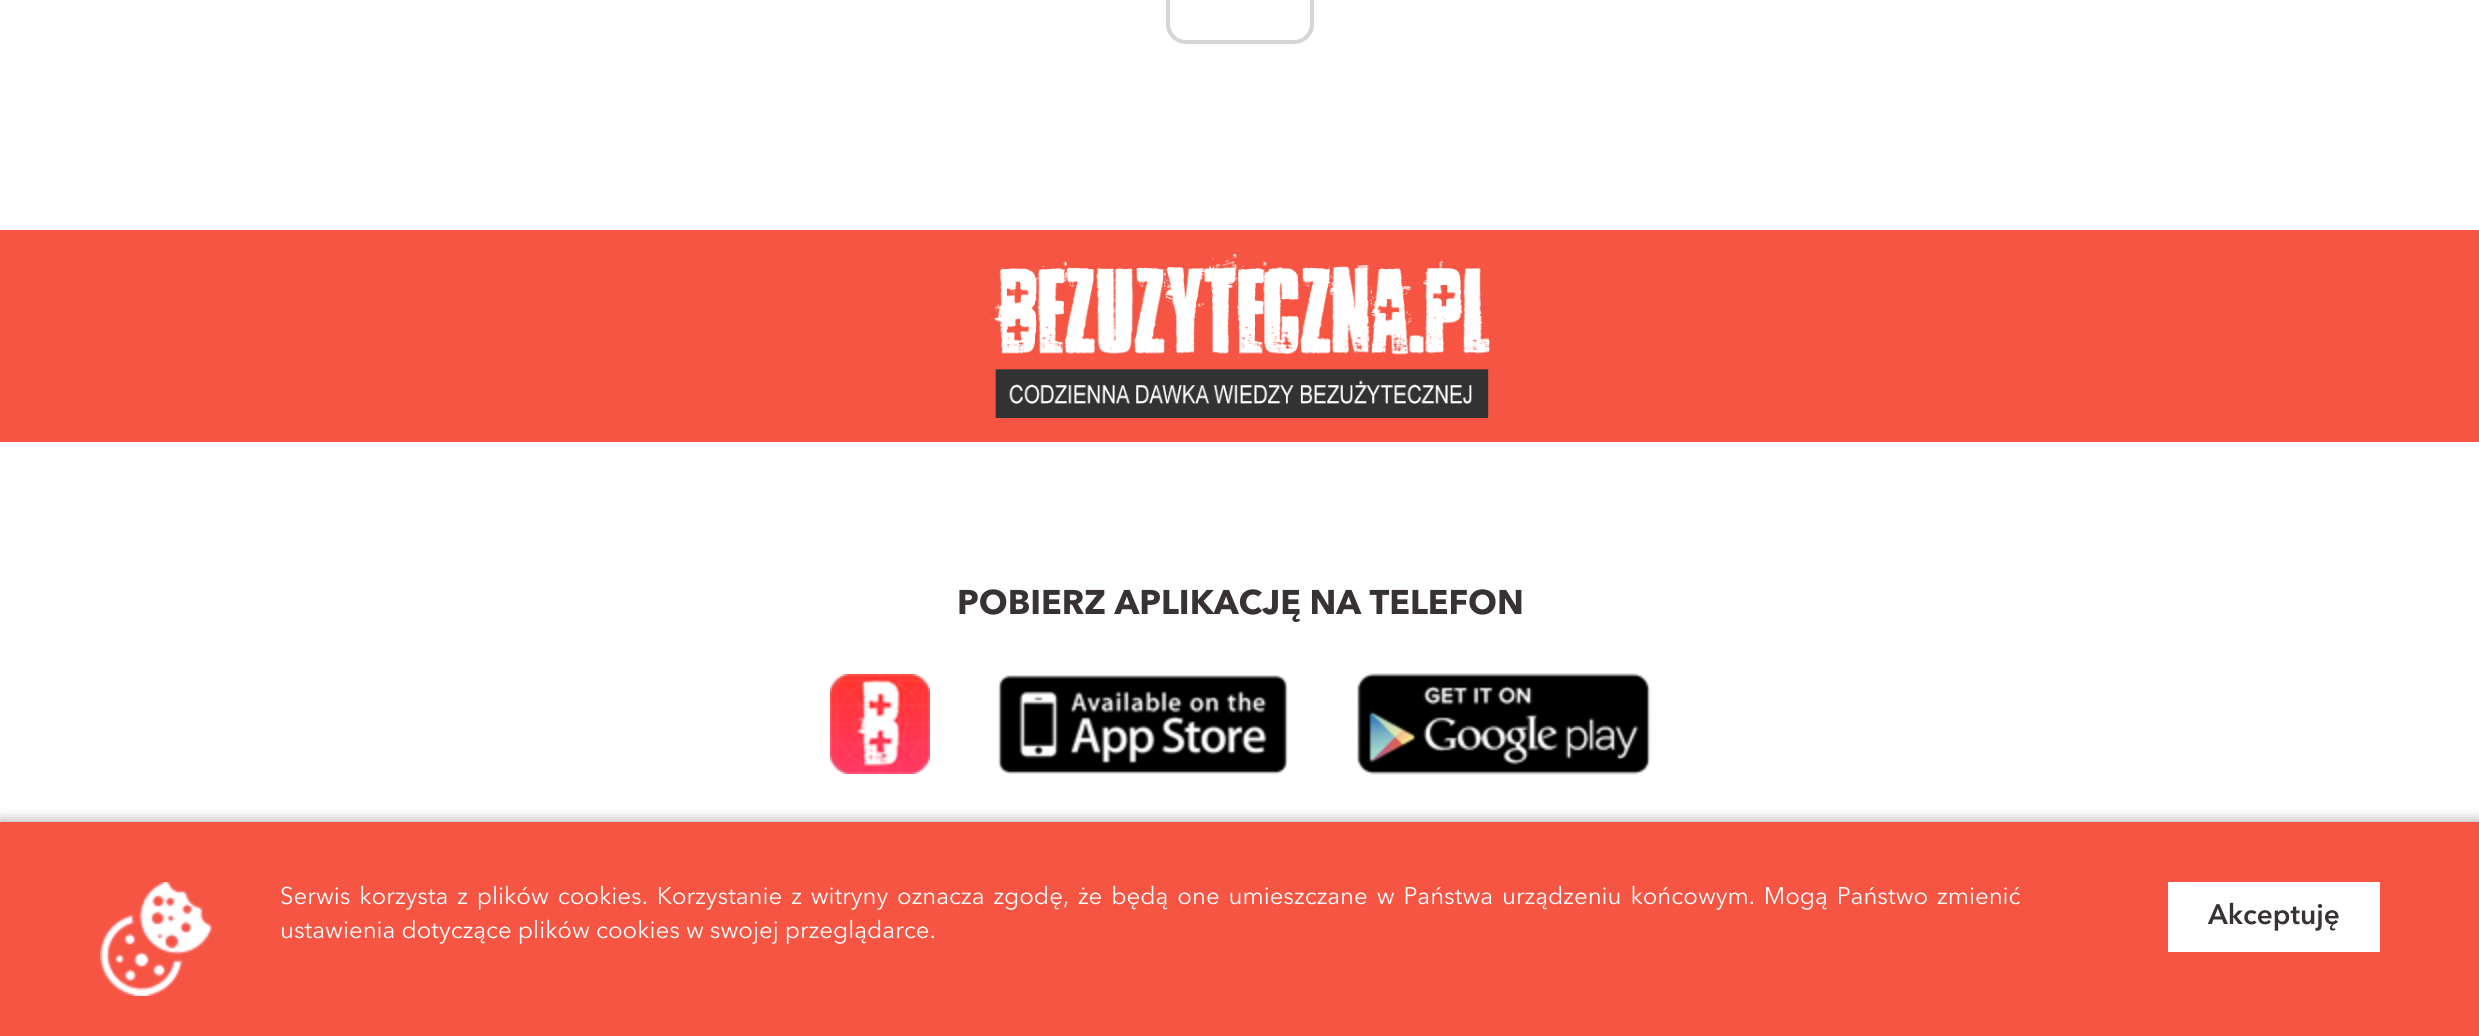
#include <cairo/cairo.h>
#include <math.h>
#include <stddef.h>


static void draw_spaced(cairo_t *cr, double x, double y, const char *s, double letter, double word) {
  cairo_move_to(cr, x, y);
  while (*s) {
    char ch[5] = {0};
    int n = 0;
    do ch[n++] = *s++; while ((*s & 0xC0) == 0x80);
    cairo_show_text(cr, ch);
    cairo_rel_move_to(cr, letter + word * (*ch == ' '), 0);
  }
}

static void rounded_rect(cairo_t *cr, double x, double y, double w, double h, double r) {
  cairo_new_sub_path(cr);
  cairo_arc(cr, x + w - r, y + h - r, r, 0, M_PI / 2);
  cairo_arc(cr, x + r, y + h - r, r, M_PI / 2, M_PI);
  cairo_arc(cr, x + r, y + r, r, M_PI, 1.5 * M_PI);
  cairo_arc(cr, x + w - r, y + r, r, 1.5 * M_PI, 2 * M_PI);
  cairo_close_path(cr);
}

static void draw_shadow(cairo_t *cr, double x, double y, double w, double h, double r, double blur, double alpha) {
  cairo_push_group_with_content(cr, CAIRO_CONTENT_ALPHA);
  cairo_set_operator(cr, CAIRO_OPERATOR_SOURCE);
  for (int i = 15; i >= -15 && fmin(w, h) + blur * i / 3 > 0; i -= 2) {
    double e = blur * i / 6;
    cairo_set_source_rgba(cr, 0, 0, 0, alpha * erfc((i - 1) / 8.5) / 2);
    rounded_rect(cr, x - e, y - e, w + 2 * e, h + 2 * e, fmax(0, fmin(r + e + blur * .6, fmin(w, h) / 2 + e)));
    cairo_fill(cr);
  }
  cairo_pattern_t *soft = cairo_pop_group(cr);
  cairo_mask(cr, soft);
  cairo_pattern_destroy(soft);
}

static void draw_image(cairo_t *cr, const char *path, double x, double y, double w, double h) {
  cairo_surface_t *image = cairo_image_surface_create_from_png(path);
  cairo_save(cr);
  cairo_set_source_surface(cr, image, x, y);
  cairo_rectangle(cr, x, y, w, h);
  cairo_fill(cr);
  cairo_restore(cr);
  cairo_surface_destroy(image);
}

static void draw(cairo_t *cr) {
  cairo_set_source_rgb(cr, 1, 1, 1);
  cairo_paint(cr);
  rounded_rect(cr, 1168, -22, 144, 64, 18);
  cairo_set_source_rgb(cr, 213 / 255.0, 213 / 255.0, 213 / 255.0);
  cairo_set_line_width(cr, 4);
  cairo_stroke(cr);
  cairo_set_source_rgb(cr, 246 / 255.0, 85 / 255.0, 67 / 255.0);
  cairo_rectangle(cr, 0, 230, 2479, 212);
  cairo_fill(cr);
  draw_image(cr, "images/1.png", 990, 254, 500, 164);
  draw_image(cr, "images/2.png", 830, 674, 100, 100);
  draw_image(cr, "images/3.png", 998, 675, 290, 99);
  draw_image(cr, "images/4.png", 1357, 673, 294, 102);
  cairo_set_source_rgb(cr, 0, 0, 0);
  draw_shadow(cr, 0, 820, 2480, 214, 0, 6, 0.3);
  cairo_set_source_rgb(cr, 246 / 255.0, 85 / 255.0, 67 / 255.0);
  cairo_rectangle(cr, 0, 822, 2479, 214);
  cairo_fill(cr);
  draw_image(cr, "images/5.png", 100, 882, 112, 114);
  cairo_set_source_rgb(cr, 1, 1, 1);
  cairo_rectangle(cr, 2168, 882, 212, 70);
  cairo_fill(cr);
  cairo_select_font_face(cr, "Avenir Next", CAIRO_FONT_SLANT_NORMAL, CAIRO_FONT_WEIGHT_BOLD);
  cairo_set_font_size(cr, 34);
  cairo_set_source_rgb(cr, 57 / 255.0, 50 / 255.0, 52 / 255.0);
  cairo_move_to(cr, 957, 614);
  cairo_show_text(cr, "POBIERZ APLIKACJĘ NA TELEFON");
  cairo_select_font_face(cr, "Avenir Next", CAIRO_FONT_SLANT_NORMAL, CAIRO_FONT_WEIGHT_NORMAL);
  cairo_set_font_size(cr, 24);
  cairo_set_source_rgb(cr, 1, 1, 1);
  draw_spaced(cr, 280, 904, "Serwis korzysta z plików cookies. Korzystanie z witryny oznacza zgodę, że będą one umieszczane w Państwa urządzeniu końcowym. Mogą Państwo zmienić", 0, 2.9);
  cairo_move_to(cr, 280, 938);
  cairo_show_text(cr, "ustawienia dotyczące plików cookies w swojej przeglądarce.");
  cairo_select_font_face(cr, "Avenir Next SemiBold", CAIRO_FONT_SLANT_NORMAL, CAIRO_FONT_WEIGHT_NORMAL);
  cairo_set_font_size(cr, 28);
  cairo_set_source_rgb(cr, 57 / 255.0, 50 / 255.0, 52 / 255.0);
  cairo_move_to(cr, 2208, 924);
  cairo_show_text(cr, "Akceptuję");
}

int main(void) {
  cairo_surface_t *surface = cairo_image_surface_create(CAIRO_FORMAT_RGB24, 2479, 1036);
  cairo_t *cr = cairo_create(surface);
  cairo_font_options_t *options = cairo_font_options_create();
  cairo_font_options_set_hint_metrics(options, CAIRO_HINT_METRICS_OFF);
  cairo_font_options_set_hint_style(options, CAIRO_HINT_STYLE_NONE);
  cairo_set_font_options(cr, options);
  cairo_set_miter_limit(cr, 4);
  draw(cr);
  cairo_surface_write_to_png(surface, "out.png");
  cairo_font_options_destroy(options);
  cairo_destroy(cr);
  cairo_surface_destroy(surface);
  return 0;
}
